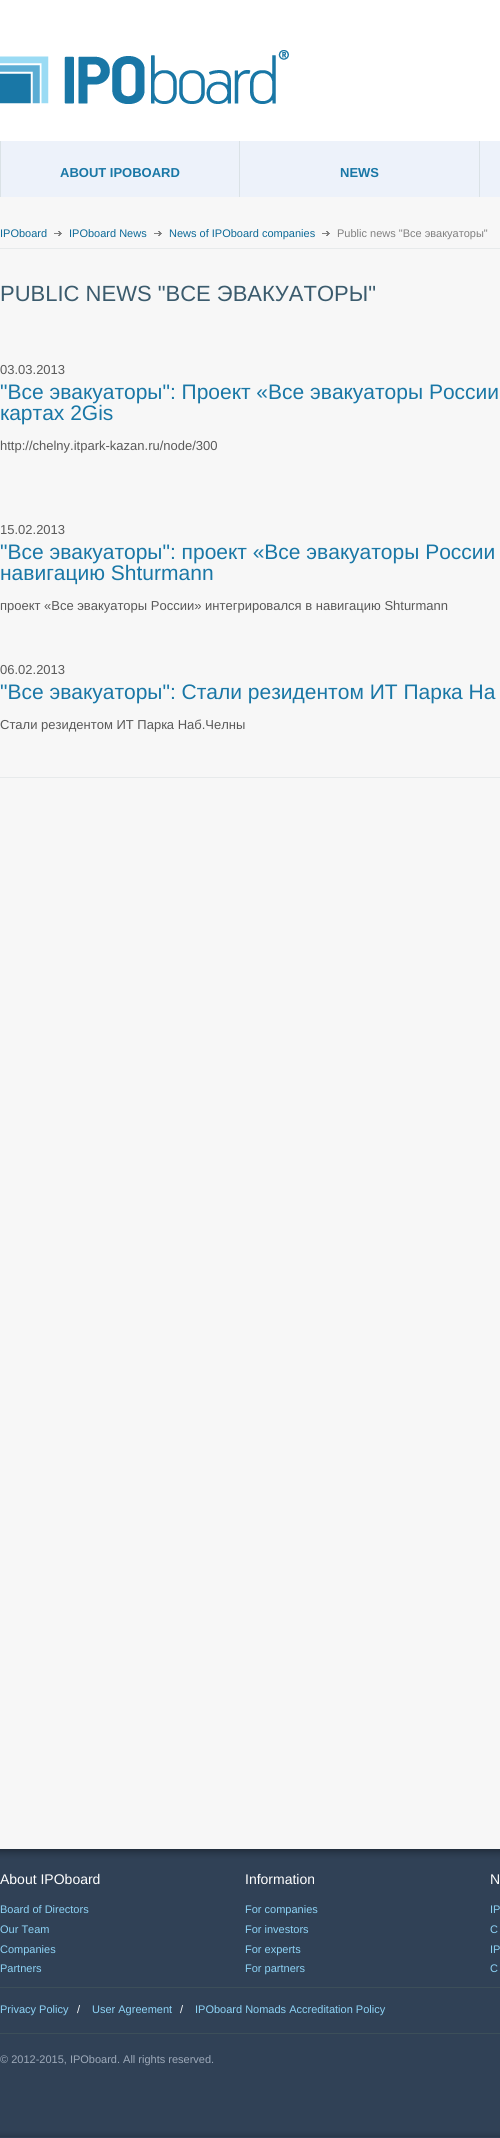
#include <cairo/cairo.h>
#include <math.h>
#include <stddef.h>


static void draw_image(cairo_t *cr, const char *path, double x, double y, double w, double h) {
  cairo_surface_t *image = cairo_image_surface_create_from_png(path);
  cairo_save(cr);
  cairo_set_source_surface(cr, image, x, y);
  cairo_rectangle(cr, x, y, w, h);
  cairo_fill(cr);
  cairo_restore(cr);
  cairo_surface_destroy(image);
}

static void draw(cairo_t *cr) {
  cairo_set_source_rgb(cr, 247 / 255.0, 247 / 255.0, 247 / 255.0);
  cairo_paint(cr);
  cairo_set_source_rgb(cr, 1, 1, 1);
  cairo_rectangle(cr, 0, 0, 500, 141);
  cairo_fill(cr);
  draw_image(cr, "images/1.png", 0, 50, 289, 54);
  cairo_set_source_rgb(cr, 237 / 255.0, 242 / 255.0, 250 / 255.0);
  cairo_rectangle(cr, 1, 141, 499, 56);
  cairo_fill(cr);
  cairo_set_source_rgb(cr, 218 / 255.0, 226 / 255.0, 230 / 255.0);
  cairo_rectangle(cr, 239, 141, 1, 56);
  cairo_fill(cr);
  cairo_rectangle(cr, 0, 141, 1, 56);
  cairo_fill(cr);
  cairo_rectangle(cr, 479, 141, 1, 56);
  cairo_fill(cr);
  cairo_set_source_rgb(cr, 231 / 255.0, 234 / 255.0, 235 / 255.0);
  cairo_rectangle(cr, 0, 248, 500, 1);
  cairo_fill(cr);
  draw_image(cr, "images/2.png", 54, 231, 8, 5);
  draw_image(cr, "images/2.png", 154, 231, 8, 5);
  draw_image(cr, "images/2.png", 322, 231, 8, 5);
  cairo_rectangle(cr, 0, 777, 500, 1);
  cairo_fill(cr);
  cairo_set_source_rgb(cr, 48 / 255.0, 65 / 255.0, 86 / 255.0);
  cairo_rectangle(cr, 0, 2137, 500, 1);
  cairo_fill(cr);
  draw_image(cr, "images/3.png", 0, 1849, 500, 288);
  cairo_set_source_rgb(cr, 60 / 255.0, 79 / 255.0, 89 / 255.0);
  cairo_rectangle(cr, 0, 1987, 500, 1);
  cairo_fill(cr);
  cairo_rectangle(cr, 0, 2033, 500, 1);
  cairo_fill(cr);
  cairo_select_font_face(cr, "Liberation Sans", CAIRO_FONT_SLANT_NORMAL, CAIRO_FONT_WEIGHT_BOLD);
  cairo_set_font_size(cr, 13);
  cairo_set_source_rgb(cr, 25 / 255.0, 119 / 255.0, 166 / 255.0);
  cairo_move_to(cr, 60, 177);
  cairo_show_text(cr, "ABOUT IPOBOARD");
  cairo_move_to(cr, 340, 177);
  cairo_show_text(cr, "NEWS");
  cairo_select_font_face(cr, "Liberation Sans", CAIRO_FONT_SLANT_NORMAL, CAIRO_FONT_WEIGHT_NORMAL);
  cairo_set_font_size(cr, 11);
  cairo_set_source_rgb(cr, 12 / 255.0, 105 / 255.0, 151 / 255.0);
  cairo_move_to(cr, 0, 237);
  cairo_show_text(cr, "IPOboard");
  cairo_move_to(cr, 69, 237);
  cairo_show_text(cr, "IPOboard News");
  cairo_move_to(cr, 169, 237);
  cairo_show_text(cr, "News of IPOboard companies");
  cairo_set_source_rgb(cr, 128 / 255.0, 128 / 255.0, 128 / 255.0);
  cairo_move_to(cr, 337, 237);
  cairo_show_text(cr, "Public news \"Все эвакуаторы\"");
  cairo_set_font_size(cr, 22);
  cairo_set_source_rgb(cr, 59 / 255.0, 91 / 255.0, 109 / 255.0);
  cairo_move_to(cr, 0, 301);
  cairo_show_text(cr, "PUBLIC NEWS \"ВСЕ ЭВАКУАТОРЫ\"");
  cairo_set_font_size(cr, 13);
  cairo_set_source_rgb(cr, 89 / 255.0, 89 / 255.0, 89 / 255.0);
  cairo_move_to(cr, 0, 374);
  cairo_show_text(cr, "03.03.2013");
  cairo_set_font_size(cr, 21);
  cairo_set_source_rgb(cr, 25 / 255.0, 119 / 255.0, 166 / 255.0);
  cairo_move_to(cr, 0, 399);
  cairo_show_text(cr, "\"Все эвакуаторы\": Проект «Все эвакуаторы России");
  cairo_move_to(cr, 0, 420);
  cairo_show_text(cr, "картах 2Gis");
  cairo_set_font_size(cr, 13);
  cairo_set_source_rgb(cr, 89 / 255.0, 89 / 255.0, 89 / 255.0);
  cairo_move_to(cr, 0, 450);
  cairo_show_text(cr, "http://chelny.itpark-kazan.ru/node/300");
  cairo_move_to(cr, 0, 534);
  cairo_show_text(cr, "15.02.2013");
  cairo_set_font_size(cr, 21);
  cairo_set_source_rgb(cr, 25 / 255.0, 119 / 255.0, 166 / 255.0);
  cairo_move_to(cr, 0, 559);
  cairo_show_text(cr, "\"Все эвакуаторы\": проект «Все эвакуаторы России");
  cairo_move_to(cr, 0, 580);
  cairo_show_text(cr, "навигацию Shturmann");
  cairo_set_font_size(cr, 13);
  cairo_set_source_rgb(cr, 89 / 255.0, 89 / 255.0, 89 / 255.0);
  cairo_move_to(cr, 0, 610);
  cairo_show_text(cr, "проект «Все эвакуаторы России» интегрировался в навигацию Shturmann");
  cairo_move_to(cr, 0, 674);
  cairo_show_text(cr, "06.02.2013");
  cairo_set_font_size(cr, 21);
  cairo_set_source_rgb(cr, 25 / 255.0, 119 / 255.0, 166 / 255.0);
  cairo_move_to(cr, 0, 699);
  cairo_show_text(cr, "\"Все эвакуаторы\": Стали резидентом ИТ Парка На");
  cairo_set_font_size(cr, 13);
  cairo_set_source_rgb(cr, 89 / 255.0, 89 / 255.0, 89 / 255.0);
  cairo_move_to(cr, 0, 729);
  cairo_show_text(cr, "Стали резидентом ИТ Парка Наб.Челны");
  cairo_set_font_size(cr, 14);
  cairo_set_source_rgb(cr, 1, 1, 1);
  cairo_move_to(cr, 0, 1884);
  cairo_show_text(cr, "About IPOboard");
  cairo_set_font_size(cr, 11);
  cairo_set_source_rgb(cr, 141 / 255.0, 211 / 255.0, 246 / 255.0);
  cairo_move_to(cr, 0, 1913);
  cairo_show_text(cr, "Board of Directors");
  cairo_move_to(cr, 0, 1933);
  cairo_show_text(cr, "Our Team");
  cairo_move_to(cr, 0, 1953);
  cairo_show_text(cr, "Companies");
  cairo_move_to(cr, 0, 1972);
  cairo_show_text(cr, "Partners");
  cairo_set_font_size(cr, 14);
  cairo_set_source_rgb(cr, 1, 1, 1);
  cairo_move_to(cr, 245, 1884);
  cairo_show_text(cr, "Information");
  cairo_set_font_size(cr, 11);
  cairo_set_source_rgb(cr, 141 / 255.0, 211 / 255.0, 246 / 255.0);
  cairo_move_to(cr, 245, 1913);
  cairo_show_text(cr, "For companies");
  cairo_move_to(cr, 245, 1933);
  cairo_show_text(cr, "For investors");
  cairo_move_to(cr, 245, 1953);
  cairo_show_text(cr, "For experts");
  cairo_move_to(cr, 245, 1972);
  cairo_show_text(cr, "For partners");
  cairo_set_font_size(cr, 14);
  cairo_set_source_rgb(cr, 1, 1, 1);
  cairo_move_to(cr, 490, 1884);
  cairo_show_text(cr, "N");
  cairo_set_font_size(cr, 11);
  cairo_set_source_rgb(cr, 141 / 255.0, 211 / 255.0, 246 / 255.0);
  cairo_move_to(cr, 490, 1913);
  cairo_show_text(cr, "IP");
  cairo_move_to(cr, 490, 1933);
  cairo_show_text(cr, "C");
  cairo_move_to(cr, 490, 1953);
  cairo_show_text(cr, "IP");
  cairo_move_to(cr, 490, 1972);
  cairo_show_text(cr, "C");
  cairo_move_to(cr, 0, 2013);
  cairo_show_text(cr, "Privacy Policy");
  cairo_set_source_rgb(cr, 1, 1, 1);
  cairo_move_to(cr, 77, 2013);
  cairo_show_text(cr, "/");
  cairo_set_source_rgb(cr, 141 / 255.0, 211 / 255.0, 246 / 255.0);
  cairo_move_to(cr, 92, 2013);
  cairo_show_text(cr, "User Agreement");
  cairo_set_source_rgb(cr, 1, 1, 1);
  cairo_move_to(cr, 180, 2013);
  cairo_show_text(cr, "/");
  cairo_set_source_rgb(cr, 141 / 255.0, 211 / 255.0, 246 / 255.0);
  cairo_move_to(cr, 195, 2013);
  cairo_show_text(cr, "IPOboard Nomads Accreditation Policy");
  cairo_set_source_rgb(cr, 157 / 255.0, 169 / 255.0, 185 / 255.0);
  cairo_move_to(cr, 0, 2063);
  cairo_show_text(cr, "© 2012-2015, IPOboard. All rights reserved.");
}

int main(void) {
  cairo_surface_t *surface = cairo_image_surface_create(CAIRO_FORMAT_RGB24, 500, 2138);
  cairo_t *cr = cairo_create(surface);
  cairo_font_options_t *options = cairo_font_options_create();
  cairo_font_options_set_hint_metrics(options, CAIRO_HINT_METRICS_OFF);
  cairo_font_options_set_hint_style(options, CAIRO_HINT_STYLE_NONE);
  cairo_set_font_options(cr, options);
  cairo_set_miter_limit(cr, 4);
  draw(cr);
  cairo_surface_write_to_png(surface, "out.png");
  cairo_font_options_destroy(options);
  cairo_destroy(cr);
  cairo_surface_destroy(surface);
  return 0;
}
